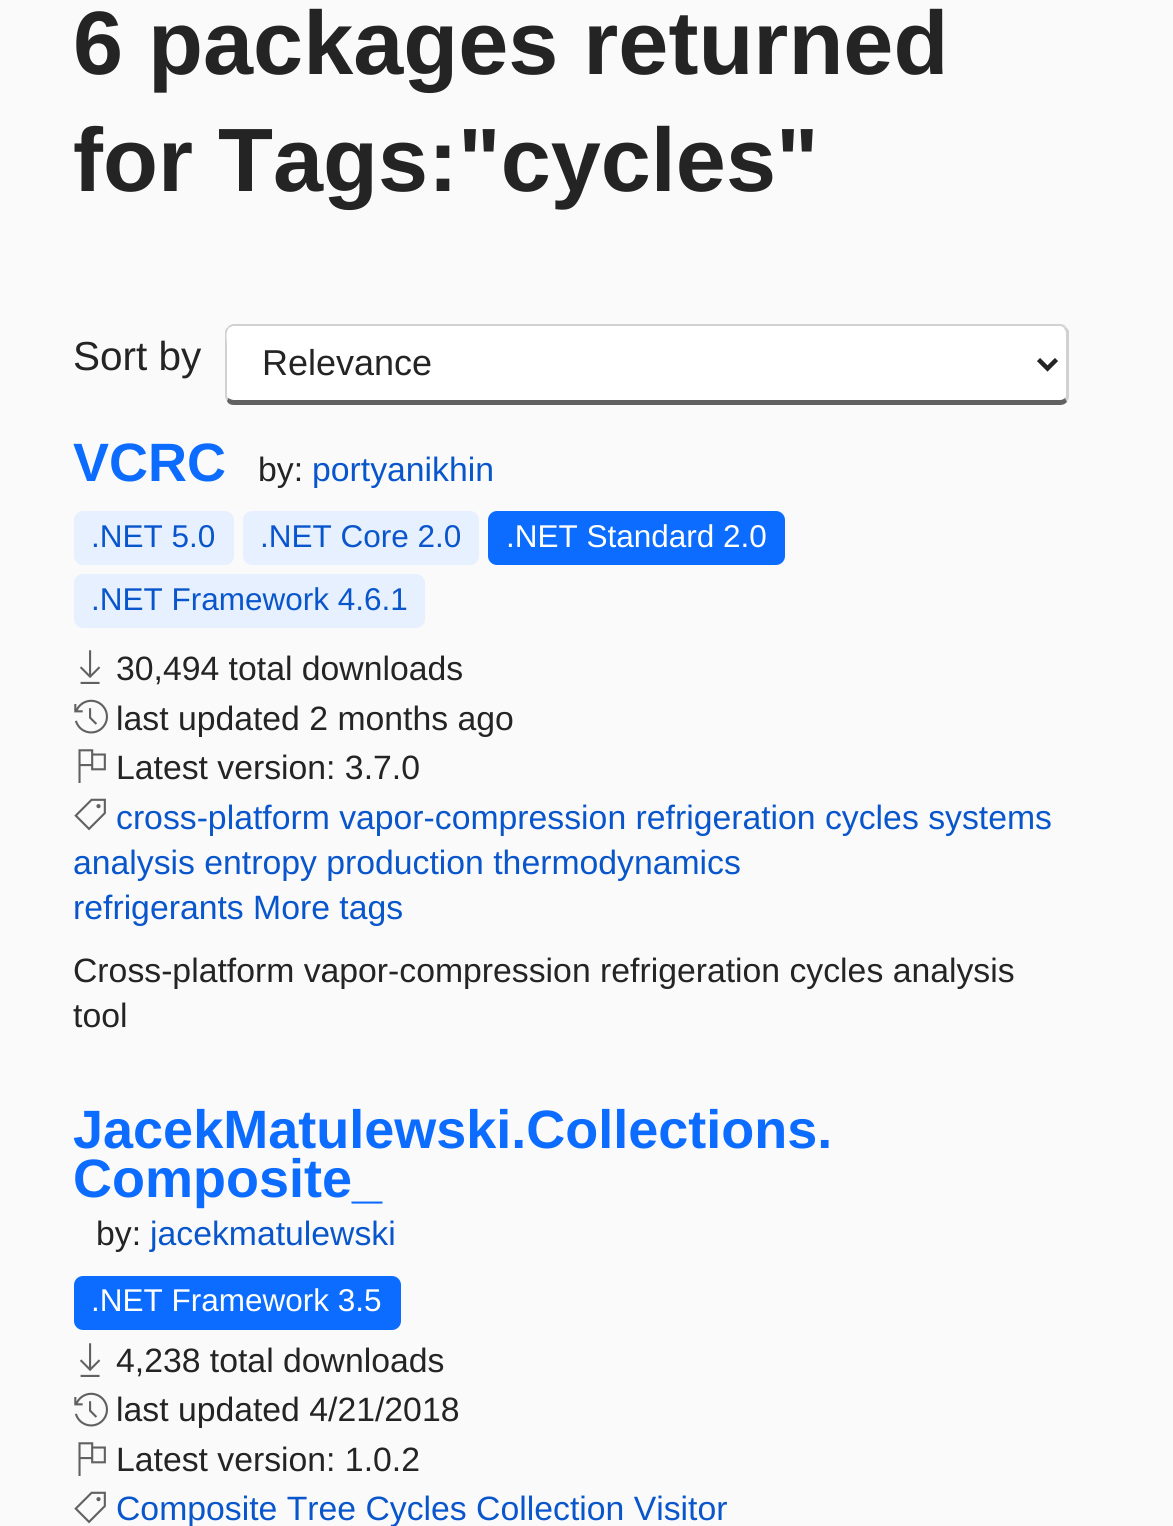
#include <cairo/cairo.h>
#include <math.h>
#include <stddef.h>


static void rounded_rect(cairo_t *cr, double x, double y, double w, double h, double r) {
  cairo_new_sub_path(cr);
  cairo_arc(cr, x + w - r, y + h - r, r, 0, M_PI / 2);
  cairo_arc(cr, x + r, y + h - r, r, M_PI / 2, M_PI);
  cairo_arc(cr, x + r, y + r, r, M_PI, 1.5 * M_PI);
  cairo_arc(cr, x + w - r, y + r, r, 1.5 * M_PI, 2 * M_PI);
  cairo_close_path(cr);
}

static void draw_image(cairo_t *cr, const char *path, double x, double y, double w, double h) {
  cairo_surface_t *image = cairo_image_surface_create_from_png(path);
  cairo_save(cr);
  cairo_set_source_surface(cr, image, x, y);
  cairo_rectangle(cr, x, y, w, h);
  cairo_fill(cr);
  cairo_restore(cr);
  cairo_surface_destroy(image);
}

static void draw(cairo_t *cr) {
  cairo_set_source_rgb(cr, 250 / 255.0, 250 / 255.0, 250 / 255.0);
  cairo_paint(cr);
  cairo_set_source_rgb(cr, 1, 1, 1);
  cairo_new_path(cr);
  cairo_move_to(cr, 234, 326);
  cairo_line_to(cr, 1060, 326);
  cairo_curve_to(cr, 1063, 326, 1066, 329, 1066, 333);
  cairo_line_to(cr, 1066, 396);
  cairo_curve_to(cr, 1066, 398, 1063, 400, 1060, 400);
  cairo_line_to(cr, 234, 400);
  cairo_curve_to(cr, 230, 400, 227, 398, 227, 396);
  cairo_line_to(cr, 227, 333);
  cairo_curve_to(cr, 227, 329, 230, 326, 234, 326);
  cairo_close_path(cr);
  cairo_fill(cr);
  cairo_set_source_rgb(cr, 209 / 255.0, 209 / 255.0, 209 / 255.0);
  cairo_new_path(cr);
  cairo_move_to(cr, 234, 324);
  cairo_curve_to(cr, 232, 324, 229, 325, 228, 327);
  cairo_line_to(cr, 229, 328);
  cairo_curve_to(cr, 230, 327, 232, 326, 234, 326);
  cairo_line_to(cr, 1060, 326);
  cairo_curve_to(cr, 1062, 326, 1063, 327, 1064, 328);
  cairo_line_to(cr, 1066, 327);
  cairo_curve_to(cr, 1065, 325, 1062, 324, 1060, 324);
  cairo_close_path(cr);
  cairo_fill(cr);
  cairo_new_path(cr);
  cairo_move_to(cr, 1069, 398);
  cairo_line_to(cr, 1067, 402);
  cairo_line_to(cr, 1065, 398);
  cairo_line_to(cr, 1066, 396);
  cairo_line_to(cr, 1066, 332);
  cairo_line_to(cr, 1064, 328);
  cairo_line_to(cr, 1066, 327);
  cairo_curve_to(cr, 1067, 328, 1068, 329, 1069, 331);
  cairo_close_path(cr);
  cairo_fill(cr);
  cairo_set_source_rgb(cr, 97 / 255.0, 97 / 255.0, 97 / 255.0);
  cairo_new_path(cr);
  cairo_move_to(cr, 234, 405);
  cairo_line_to(cr, 1060, 405);
  cairo_curve_to(cr, 1063, 405, 1065, 404, 1067, 402);
  cairo_line_to(cr, 1065, 398);
  cairo_curve_to(cr, 1064, 399, 1062, 400, 1060, 400);
  cairo_line_to(cr, 234, 400);
  cairo_curve_to(cr, 232, 400, 230, 399, 228, 398);
  cairo_line_to(cr, 227, 401);
  cairo_curve_to(cr, 228, 404, 231, 405, 234, 405);
  cairo_close_path(cr);
  cairo_fill(cr);
  cairo_set_source_rgb(cr, 209 / 255.0, 209 / 255.0, 209 / 255.0);
  cairo_new_path(cr);
  cairo_move_to(cr, 225, 333);
  cairo_line_to(cr, 225, 396);
  cairo_curve_to(cr, 225, 398, 226, 400, 227, 401);
  cairo_line_to(cr, 228, 398);
  cairo_line_to(cr, 227, 396);
  cairo_line_to(cr, 227, 344);
  cairo_curve_to(cr, 227, 340, 225, 332, 229, 328);
  cairo_line_to(cr, 228, 327);
  cairo_curve_to(cr, 226, 328, 225, 330, 225, 333);
  cairo_close_path(cr);
  cairo_fill(cr);
  cairo_new_path(cr);
  cairo_move_to(cr, 1038.5, 359.5);
  cairo_line_to(cr, 1047.5, 368.5);
  cairo_line_to(cr, 1056.5, 359.5);
  cairo_set_source_rgb(cr, 36 / 255.0, 36 / 255.0, 36 / 255.0);
  cairo_set_line_width(cr, 4.5);
  cairo_stroke(cr);
  cairo_set_source_rgb(cr, 231 / 255.0, 240 / 255.0, 1);
  rounded_rect(cr, 74, 511, 160, 54, 9);
  cairo_fill(cr);
  rounded_rect(cr, 243, 511, 236, 54, 9);
  cairo_fill(cr);
  cairo_set_source_rgb(cr, 11 / 255.0, 108 / 255.0, 1);
  rounded_rect(cr, 488, 511, 297, 54, 9);
  cairo_fill(cr);
  cairo_set_source_rgb(cr, 231 / 255.0, 240 / 255.0, 1);
  rounded_rect(cr, 74, 574, 351, 54, 9);
  cairo_fill(cr);
  draw_image(cr, "images/1.png", 79, 650, 22, 34);
  draw_image(cr, "images/2.png", 74, 699, 34, 35);
  draw_image(cr, "images/3.png", 78, 749, 28, 34);
  draw_image(cr, "images/4.png", 74, 798, 32, 33);
  cairo_set_source_rgb(cr, 11 / 255.0, 108 / 255.0, 1);
  rounded_rect(cr, 74, 1276, 327, 54, 9);
  cairo_fill(cr);
  draw_image(cr, "images/1.png", 79, 1343, 22, 34);
  draw_image(cr, "images/2.png", 74, 1392, 34, 35);
  draw_image(cr, "images/3.png", 78, 1442, 28, 34);
  draw_image(cr, "images/4.png", 74, 1491, 32, 33);
  cairo_select_font_face(cr, "Liberation Sans", CAIRO_FONT_SLANT_NORMAL, CAIRO_FONT_WEIGHT_BOLD);
  cairo_set_font_size(cr, 90);
  cairo_set_source_rgb(cr, 36 / 255.0, 36 / 255.0, 36 / 255.0);
  cairo_move_to(cr, 73, 74);
  cairo_show_text(cr, "6 packages returned");
  cairo_move_to(cr, 73, 191);
  cairo_show_text(cr, "for Tags:\"cycles\"");
  cairo_select_font_face(cr, "Liberation Sans", CAIRO_FONT_SLANT_NORMAL, CAIRO_FONT_WEIGHT_NORMAL);
  cairo_set_font_size(cr, 40.5);
  cairo_move_to(cr, 73, 370);
  cairo_show_text(cr, "Sort by");
  cairo_set_font_size(cr, 36);
  cairo_move_to(cr, 262, 375);
  cairo_show_text(cr, "Relevance");
  cairo_select_font_face(cr, "Liberation Sans", CAIRO_FONT_SLANT_NORMAL, CAIRO_FONT_WEIGHT_BOLD);
  cairo_set_font_size(cr, 54);
  cairo_set_source_rgb(cr, 11 / 255.0, 108 / 255.0, 1);
  cairo_move_to(cr, 73, 481);
  cairo_show_text(cr, "VCRC");
  cairo_select_font_face(cr, "Liberation Sans", CAIRO_FONT_SLANT_NORMAL, CAIRO_FONT_WEIGHT_NORMAL);
  cairo_set_font_size(cr, 33.75);
  cairo_set_source_rgb(cr, 36 / 255.0, 36 / 255.0, 36 / 255.0);
  cairo_move_to(cr, 258, 481);
  cairo_show_text(cr, "by:");
  cairo_set_source_rgb(cr, 9 / 255.0, 86 / 255.0, 204 / 255.0);
  cairo_move_to(cr, 312, 481);
  cairo_show_text(cr, "portyanikhin");
  cairo_set_font_size(cr, 31.5);
  cairo_move_to(cr, 91, 547);
  cairo_show_text(cr, ".NET 5.0");
  cairo_move_to(cr, 260, 547);
  cairo_show_text(cr, ".NET Core 2.0");
  cairo_set_source_rgb(cr, 1, 1, 1);
  cairo_move_to(cr, 506, 547);
  cairo_show_text(cr, ".NET Standard 2.0");
  cairo_set_source_rgb(cr, 9 / 255.0, 86 / 255.0, 204 / 255.0);
  cairo_move_to(cr, 91, 610);
  cairo_show_text(cr, ".NET Framework 4.6.1");
  cairo_set_font_size(cr, 33.75);
  cairo_set_source_rgb(cr, 36 / 255.0, 36 / 255.0, 36 / 255.0);
  cairo_move_to(cr, 116, 680);
  cairo_show_text(cr, "30,494 total downloads");
  cairo_move_to(cr, 116, 730);
  cairo_show_text(cr, "last updated 2 months ago");
  cairo_move_to(cr, 116, 779);
  cairo_show_text(cr, "Latest version: 3.7.0");
  cairo_set_source_rgb(cr, 9 / 255.0, 86 / 255.0, 204 / 255.0);
  cairo_move_to(cr, 116, 829);
  cairo_show_text(cr, "cross-platform vapor-compression refrigeration cycles systems");
  cairo_move_to(cr, 73, 874);
  cairo_show_text(cr, "analysis entropy production thermodynamics");
  cairo_move_to(cr, 73, 919);
  cairo_show_text(cr, "refrigerants More tags");
  cairo_set_source_rgb(cr, 36 / 255.0, 36 / 255.0, 36 / 255.0);
  cairo_move_to(cr, 73, 982);
  cairo_show_text(cr, "Cross-platform vapor-compression refrigeration cycles analysis");
  cairo_move_to(cr, 73, 1027);
  cairo_show_text(cr, "tool");
  cairo_select_font_face(cr, "Liberation Sans", CAIRO_FONT_SLANT_NORMAL, CAIRO_FONT_WEIGHT_BOLD);
  cairo_set_font_size(cr, 54);
  cairo_set_source_rgb(cr, 11 / 255.0, 108 / 255.0, 1);
  cairo_move_to(cr, 73, 1148);
  cairo_show_text(cr, "JacekMatulewski.Collections.");
  cairo_move_to(cr, 73, 1197);
  cairo_show_text(cr, "Composite_");
  cairo_select_font_face(cr, "Liberation Sans", CAIRO_FONT_SLANT_NORMAL, CAIRO_FONT_WEIGHT_NORMAL);
  cairo_set_font_size(cr, 33.75);
  cairo_set_source_rgb(cr, 36 / 255.0, 36 / 255.0, 36 / 255.0);
  cairo_move_to(cr, 96, 1245);
  cairo_show_text(cr, "by:");
  cairo_set_source_rgb(cr, 9 / 255.0, 86 / 255.0, 204 / 255.0);
  cairo_move_to(cr, 150, 1245);
  cairo_show_text(cr, "jacekmatulewski");
  cairo_set_font_size(cr, 31.5);
  cairo_set_source_rgb(cr, 1, 1, 1);
  cairo_move_to(cr, 91, 1311);
  cairo_show_text(cr, ".NET Framework 3.5");
  cairo_set_font_size(cr, 33.75);
  cairo_set_source_rgb(cr, 36 / 255.0, 36 / 255.0, 36 / 255.0);
  cairo_move_to(cr, 116, 1372);
  cairo_show_text(cr, "4,238 total downloads");
  cairo_move_to(cr, 116, 1421);
  cairo_show_text(cr, "last updated 4/21/2018");
  cairo_move_to(cr, 116, 1471);
  cairo_show_text(cr, "Latest version: 1.0.2");
  cairo_set_source_rgb(cr, 9 / 255.0, 86 / 255.0, 204 / 255.0);
  cairo_move_to(cr, 116, 1520);
  cairo_show_text(cr, "Composite Tree Cycles Collection Visitor");
}

int main(void) {
  cairo_surface_t *surface = cairo_image_surface_create(CAIRO_FORMAT_RGB24, 1173, 1526);
  cairo_t *cr = cairo_create(surface);
  cairo_font_options_t *options = cairo_font_options_create();
  cairo_font_options_set_hint_metrics(options, CAIRO_HINT_METRICS_OFF);
  cairo_font_options_set_hint_style(options, CAIRO_HINT_STYLE_NONE);
  cairo_set_font_options(cr, options);
  cairo_set_miter_limit(cr, 4);
  draw(cr);
  cairo_surface_write_to_png(surface, "out.png");
  cairo_font_options_destroy(options);
  cairo_destroy(cr);
  cairo_surface_destroy(surface);
  return 0;
}
